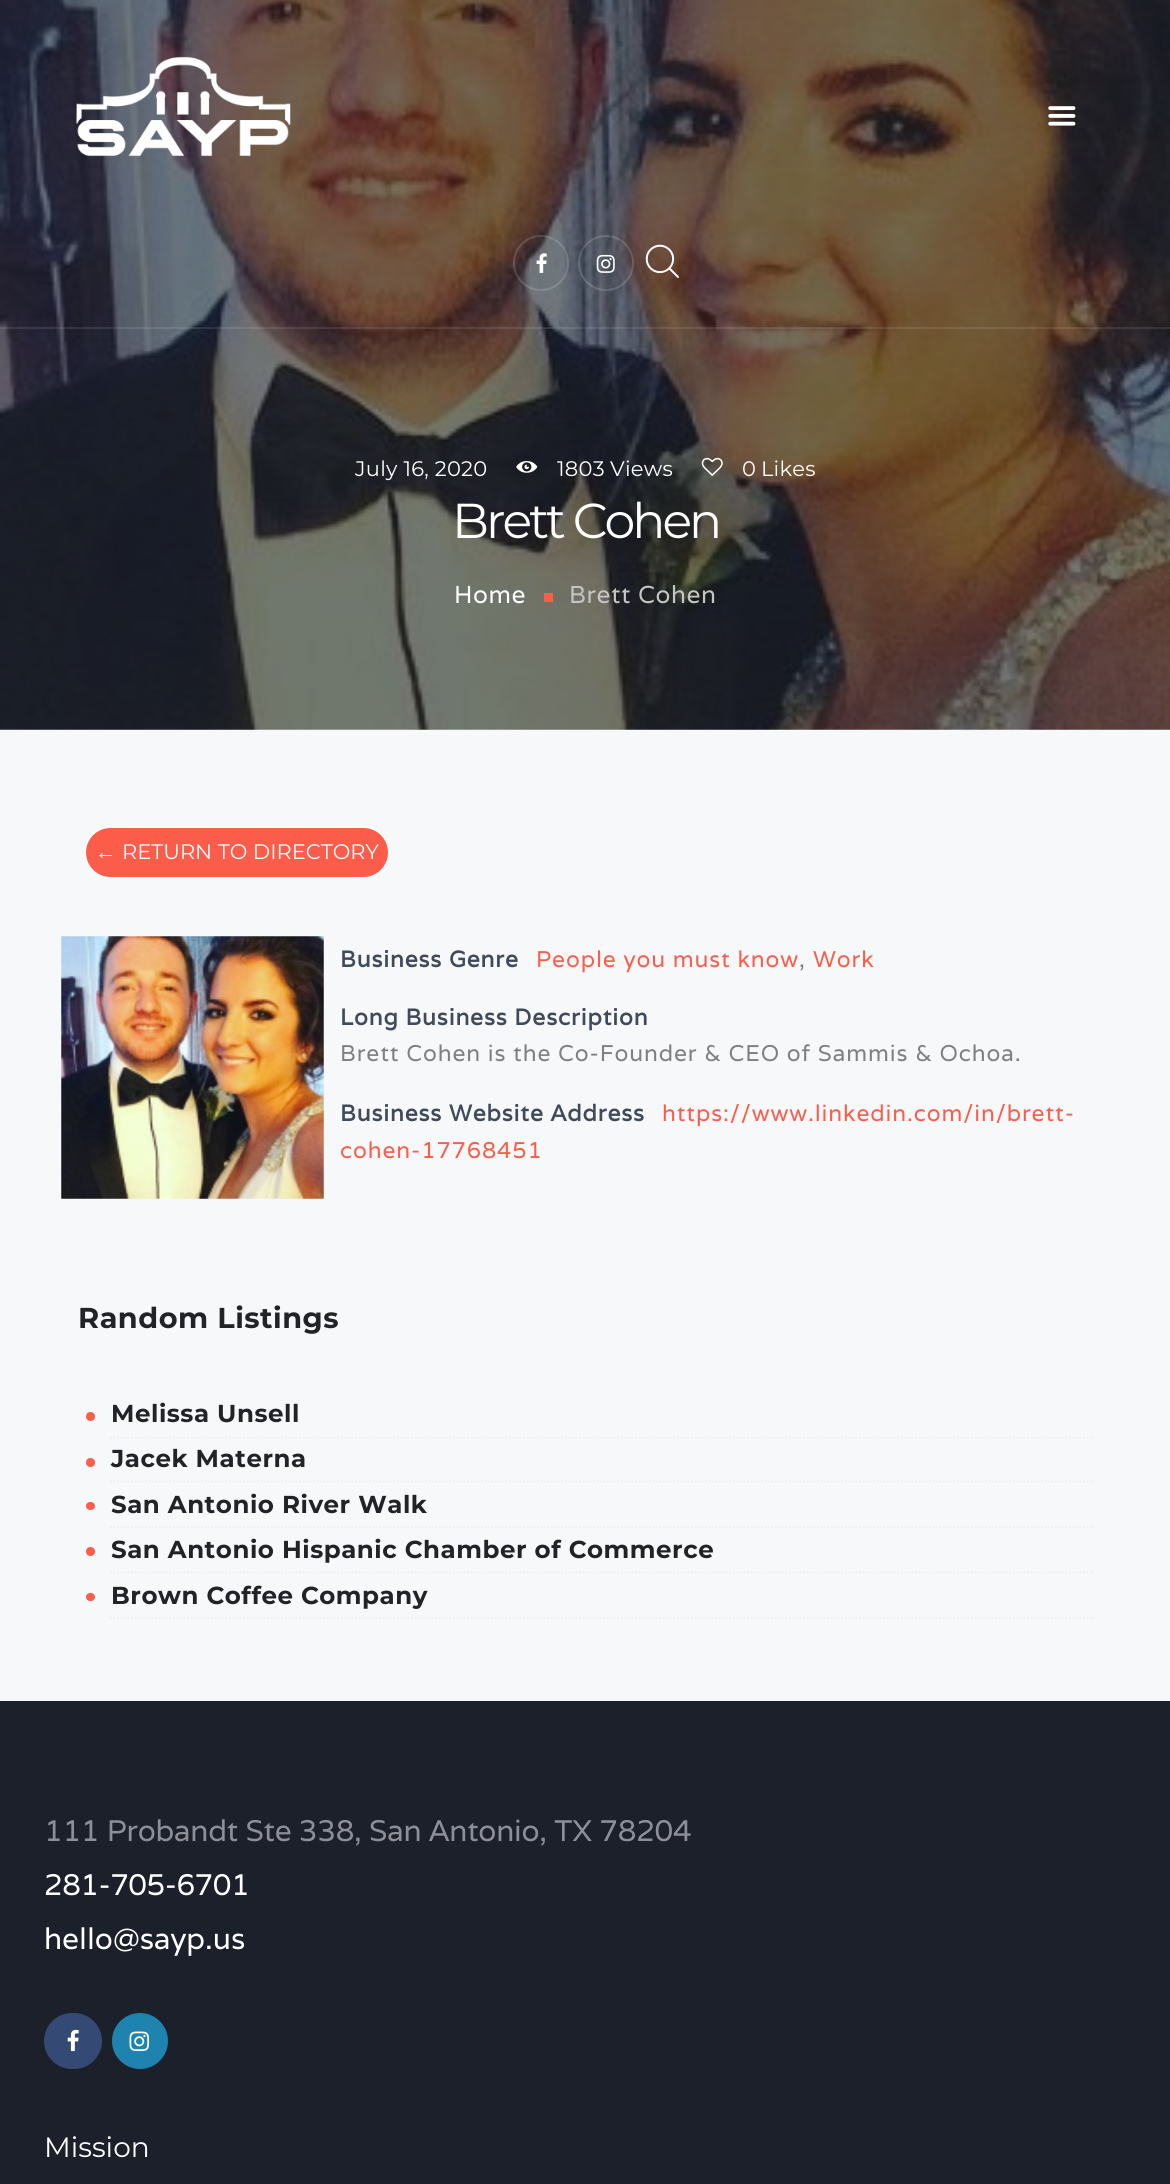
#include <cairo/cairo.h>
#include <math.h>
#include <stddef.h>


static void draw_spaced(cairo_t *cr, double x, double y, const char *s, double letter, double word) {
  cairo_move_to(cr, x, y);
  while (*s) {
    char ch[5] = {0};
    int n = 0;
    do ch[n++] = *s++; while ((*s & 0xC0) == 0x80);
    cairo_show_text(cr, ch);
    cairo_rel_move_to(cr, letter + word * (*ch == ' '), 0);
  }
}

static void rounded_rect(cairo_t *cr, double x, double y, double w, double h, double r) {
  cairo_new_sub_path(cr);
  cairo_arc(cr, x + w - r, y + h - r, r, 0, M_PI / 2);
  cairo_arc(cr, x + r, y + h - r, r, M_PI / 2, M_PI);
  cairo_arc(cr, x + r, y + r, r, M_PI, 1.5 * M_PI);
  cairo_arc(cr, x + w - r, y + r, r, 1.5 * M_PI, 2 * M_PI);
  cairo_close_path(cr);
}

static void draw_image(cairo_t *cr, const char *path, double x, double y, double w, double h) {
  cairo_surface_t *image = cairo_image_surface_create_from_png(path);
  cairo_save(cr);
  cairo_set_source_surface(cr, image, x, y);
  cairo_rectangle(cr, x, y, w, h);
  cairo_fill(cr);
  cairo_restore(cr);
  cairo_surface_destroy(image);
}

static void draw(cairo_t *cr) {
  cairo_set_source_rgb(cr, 247 / 255.0, 248 / 255.0, 250 / 255.0);
  cairo_paint(cr);
  draw_image(cr, "images/1.png", 0, 0, 1170, 730);
  cairo_set_source_rgba(cr, 1, 1, 1, 0.1);
  cairo_rectangle(cr, 0, 327, 1170, 2);
  cairo_fill(cr);
  draw_image(cr, "images/2.png", 76, 56, 215, 101);
  draw_image(cr, "images/3.png", 1048, 106, 28, 20);
  cairo_arc(cr, 541, 263, 27, 0, 2 * M_PI);
  cairo_set_source_rgba(cr, 1, 1, 1, 0.15);
  cairo_stroke(cr);
  draw_image(cr, "images/4.png", 536, 253, 11, 20);
  cairo_arc(cr, 606, 263, 27, 0, 2 * M_PI);
  cairo_stroke(cr);
  draw_image(cr, "images/5.png", 596, 254, 19, 19);
  draw_image(cr, "images/6.png", 645, 244, 34, 34);
  draw_image(cr, "images/7.png", 516, 461, 22, 12);
  draw_image(cr, "images/8.png", 701, 457, 22, 19);
  cairo_set_source_rgb(cr, 252 / 255.0, 93 / 255.0, 74 / 255.0);
  cairo_rectangle(cr, 544, 593, 9, 9);
  cairo_fill(cr);
  rounded_rect(cr, 85, 827, 304, 51, 25.5);
  cairo_fill_preserve(cr);
  cairo_set_source_rgb(cr, 1, 1, 1);
  cairo_stroke(cr);
  draw_image(cr, "images/9.png", 61, 936, 263, 263);
  cairo_new_path(cr);
  cairo_move_to(cr, 110, 1437.5);
  cairo_line_to(cr, 1094, 1437.5);
  cairo_set_source_rgb(cr, 238 / 255.0, 238 / 255.0, 238 / 255.0);
  cairo_set_line_width(cr, 1.8);
  cairo_set_dash(cr, (double[]){1.75, 1.75}, 2, 0);
  cairo_stroke(cr);
  cairo_set_source_rgb(cr, 252 / 255.0, 93 / 255.0, 74 / 255.0);
  cairo_arc(cr, 90.5, 1416.5, 4.5, 0, 2 * M_PI);
  cairo_fill(cr);
  cairo_new_path(cr);
  cairo_move_to(cr, 110, 1481.5);
  cairo_line_to(cr, 1094, 1481.5);
  cairo_set_source_rgb(cr, 238 / 255.0, 238 / 255.0, 238 / 255.0);
  cairo_stroke(cr);
  cairo_set_source_rgb(cr, 252 / 255.0, 93 / 255.0, 74 / 255.0);
  cairo_arc(cr, 90.5, 1462.5, 4.5, 0, 2 * M_PI);
  cairo_fill(cr);
  cairo_new_path(cr);
  cairo_move_to(cr, 110, 1527);
  cairo_line_to(cr, 1094, 1527);
  cairo_set_source_rgb(cr, 238 / 255.0, 238 / 255.0, 238 / 255.0);
  cairo_stroke(cr);
  cairo_set_source_rgb(cr, 252 / 255.0, 93 / 255.0, 74 / 255.0);
  rounded_rect(cr, 86, 1502, 9, 8, 4);
  cairo_fill(cr);
  cairo_new_path(cr);
  cairo_move_to(cr, 110, 1572.5);
  cairo_line_to(cr, 1094, 1572.5);
  cairo_set_source_rgb(cr, 238 / 255.0, 238 / 255.0, 238 / 255.0);
  cairo_stroke(cr);
  cairo_set_source_rgb(cr, 252 / 255.0, 93 / 255.0, 74 / 255.0);
  cairo_arc(cr, 90.5, 1551.5, 4.5, 0, 2 * M_PI);
  cairo_fill(cr);
  cairo_new_path(cr);
  cairo_move_to(cr, 110, 1618);
  cairo_line_to(cr, 1094, 1618);
  cairo_set_source_rgb(cr, 238 / 255.0, 238 / 255.0, 238 / 255.0);
  cairo_stroke(cr);
  cairo_set_source_rgb(cr, 252 / 255.0, 93 / 255.0, 74 / 255.0);
  rounded_rect(cr, 86, 1593, 9, 8, 4);
  cairo_fill(cr);
  cairo_set_source_rgb(cr, 28 / 255.0, 32 / 255.0, 42 / 255.0);
  cairo_rectangle(cr, 0, 1701, 1170, 483);
  cairo_fill(cr);
  cairo_set_source_rgb(cr, 52 / 255.0, 73 / 255.0, 115 / 255.0);
  rounded_rect(cr, 44, 2013, 58, 56, 28);
  cairo_fill(cr);
  draw_image(cr, "images/10.png", 67, 2029, 12, 23);
  cairo_set_source_rgb(cr, 30 / 255.0, 131 / 255.0, 174 / 255.0);
  cairo_arc(cr, 140, 2041, 28, 0, 2 * M_PI);
  cairo_fill(cr);
  draw_image(cr, "images/11.png", 129, 2031, 20, 21);
  cairo_select_font_face(cr, "Montserrat", CAIRO_FONT_SLANT_NORMAL, CAIRO_FONT_WEIGHT_NORMAL);
  cairo_set_font_size(cr, 21);
  cairo_set_source_rgb(cr, 1, 1, 1);
  draw_spaced(cr, 355, 476, "July 16, 2020", 0.25, 0);
  draw_spaced(cr, 557, 476, "1803", 0.25, 0);
  draw_spaced(cr, 610, 476, "Views", 0.25, 0);
  draw_spaced(cr, 742, 476, "0", 0.25, 0);
  draw_spaced(cr, 761, 476, "Likes", 0.25, 0);
  cairo_set_font_size(cr, 49);
  draw_spaced(cr, 452, 538, "Brett Cohen", -3, 0);
  cairo_select_font_face(cr, "Varela", CAIRO_FONT_SLANT_NORMAL, CAIRO_FONT_WEIGHT_NORMAL);
  cairo_set_font_size(cr, 24.5);
  draw_spaced(cr, 454, 603, "Home", 0.55, 0);
  cairo_set_source_rgb(cr, 196 / 255.0, 197 / 255.0, 196 / 255.0);
  draw_spaced(cr, 569, 603, "Brett Cohen", 0.55, 0);
  cairo_select_font_face(cr, "Liberation Sans", CAIRO_FONT_SLANT_NORMAL, CAIRO_FONT_WEIGHT_NORMAL);
  cairo_set_font_size(cr, 21);
  cairo_set_source_rgb(cr, 1, 1, 1);
  cairo_move_to(cr, 95, 859);
  cairo_show_text(cr, "←");
  cairo_select_font_face(cr, "Montserrat", CAIRO_FONT_SLANT_NORMAL, CAIRO_FONT_WEIGHT_NORMAL);
  cairo_move_to(cr, 122, 859);
  cairo_show_text(cr, "RETURN TO DIRECTORY");
  cairo_select_font_face(cr, "Varela", CAIRO_FONT_SLANT_NORMAL, CAIRO_FONT_WEIGHT_BOLD);
  cairo_set_font_size(cr, 22.75);
  cairo_set_source_rgb(cr, 63 / 255.0, 75 / 255.0, 91 / 255.0);
  draw_spaced(cr, 340, 967, "Business Genre", 0.88, 0);
  cairo_select_font_face(cr, "Varela", CAIRO_FONT_SLANT_NORMAL, CAIRO_FONT_WEIGHT_NORMAL);
  cairo_set_source_rgb(cr, 252 / 255.0, 93 / 255.0, 74 / 255.0);
  draw_spaced(cr, 536, 967, "People you must know", 0.88, 0);
  cairo_set_source_rgb(cr, 127 / 255.0, 127 / 255.0, 127 / 255.0);
  draw_spaced(cr, 799, 967, ",", 0.88, 0);
  cairo_set_source_rgb(cr, 252 / 255.0, 93 / 255.0, 74 / 255.0);
  draw_spaced(cr, 813, 967, "Work", 0.88, 0);
  cairo_select_font_face(cr, "Varela", CAIRO_FONT_SLANT_NORMAL, CAIRO_FONT_WEIGHT_BOLD);
  cairo_set_source_rgb(cr, 63 / 255.0, 75 / 255.0, 91 / 255.0);
  draw_spaced(cr, 340, 1025, "Long Business Description", 0.88, 0);
  cairo_select_font_face(cr, "Varela", CAIRO_FONT_SLANT_NORMAL, CAIRO_FONT_WEIGHT_NORMAL);
  cairo_set_source_rgb(cr, 127 / 255.0, 127 / 255.0, 127 / 255.0);
  draw_spaced(cr, 340, 1061, "Brett Cohen is the Co-Founder & CEO of Sammis & Ochoa.", 0.88, 0);
  cairo_select_font_face(cr, "Varela", CAIRO_FONT_SLANT_NORMAL, CAIRO_FONT_WEIGHT_BOLD);
  cairo_set_source_rgb(cr, 63 / 255.0, 75 / 255.0, 91 / 255.0);
  draw_spaced(cr, 340, 1121, "Business Website Address", 0.88, 0);
  cairo_select_font_face(cr, "Varela", CAIRO_FONT_SLANT_NORMAL, CAIRO_FONT_WEIGHT_NORMAL);
  cairo_set_source_rgb(cr, 252 / 255.0, 93 / 255.0, 74 / 255.0);
  draw_spaced(cr, 662, 1121, "https://www.linkedin.com/in/brett-", 0.88, 0);
  draw_spaced(cr, 340, 1158, "cohen-17768451", 0.88, 0);
  cairo_select_font_face(cr, "Montserrat", CAIRO_FONT_SLANT_NORMAL, CAIRO_FONT_WEIGHT_BOLD);
  cairo_set_font_size(cr, 28.75);
  cairo_set_source_rgb(cr, 34 / 255.0, 35 / 255.0, 39 / 255.0);
  draw_spaced(cr, 78, 1328, "Random Listings", 0.5, 0);
  cairo_set_font_size(cr, 24.5);
  draw_spaced(cr, 111, 1422, "Melissa Unsell", 0.55, 0);
  draw_spaced(cr, 111, 1467, "Jacek Materna", 0.55, 0);
  draw_spaced(cr, 111, 1513, "San Antonio River Walk", 0.55, 0);
  draw_spaced(cr, 111, 1558, "San Antonio Hispanic Chamber of Commerce", 0.55, 0);
  draw_spaced(cr, 111, 1604, "Brown Coffee Company", 0.55, 0);
  cairo_select_font_face(cr, "Varela", CAIRO_FONT_SLANT_NORMAL, CAIRO_FONT_WEIGHT_NORMAL);
  cairo_set_font_size(cr, 29.75);
  cairo_set_source_rgb(cr, 141 / 255.0, 143 / 255.0, 152 / 255.0);
  draw_spaced(cr, 44, 1841, "111 Probandt Ste 338, San Antonio, TX 78204", -0.25, 0);
  cairo_set_source_rgb(cr, 1, 1, 1);
  draw_spaced(cr, 44, 1895, "281-705-6701", -0.5, 0);
  cairo_move_to(cr, 44, 1949);
  cairo_show_text(cr, "hello@sayp.us");
  cairo_select_font_face(cr, "Montserrat", CAIRO_FONT_SLANT_NORMAL, CAIRO_FONT_WEIGHT_NORMAL);
  cairo_set_font_size(cr, 28);
  cairo_move_to(cr, 44, 2157);
  cairo_show_text(cr, "Mission");
}

int main(void) {
  cairo_surface_t *surface = cairo_image_surface_create(CAIRO_FORMAT_RGB24, 1170, 2184);
  cairo_t *cr = cairo_create(surface);
  cairo_font_options_t *options = cairo_font_options_create();
  cairo_font_options_set_hint_metrics(options, CAIRO_HINT_METRICS_OFF);
  cairo_font_options_set_hint_style(options, CAIRO_HINT_STYLE_NONE);
  cairo_set_font_options(cr, options);
  cairo_set_miter_limit(cr, 4);
  draw(cr);
  cairo_surface_write_to_png(surface, "out.png");
  cairo_font_options_destroy(options);
  cairo_destroy(cr);
  cairo_surface_destroy(surface);
  return 0;
}
